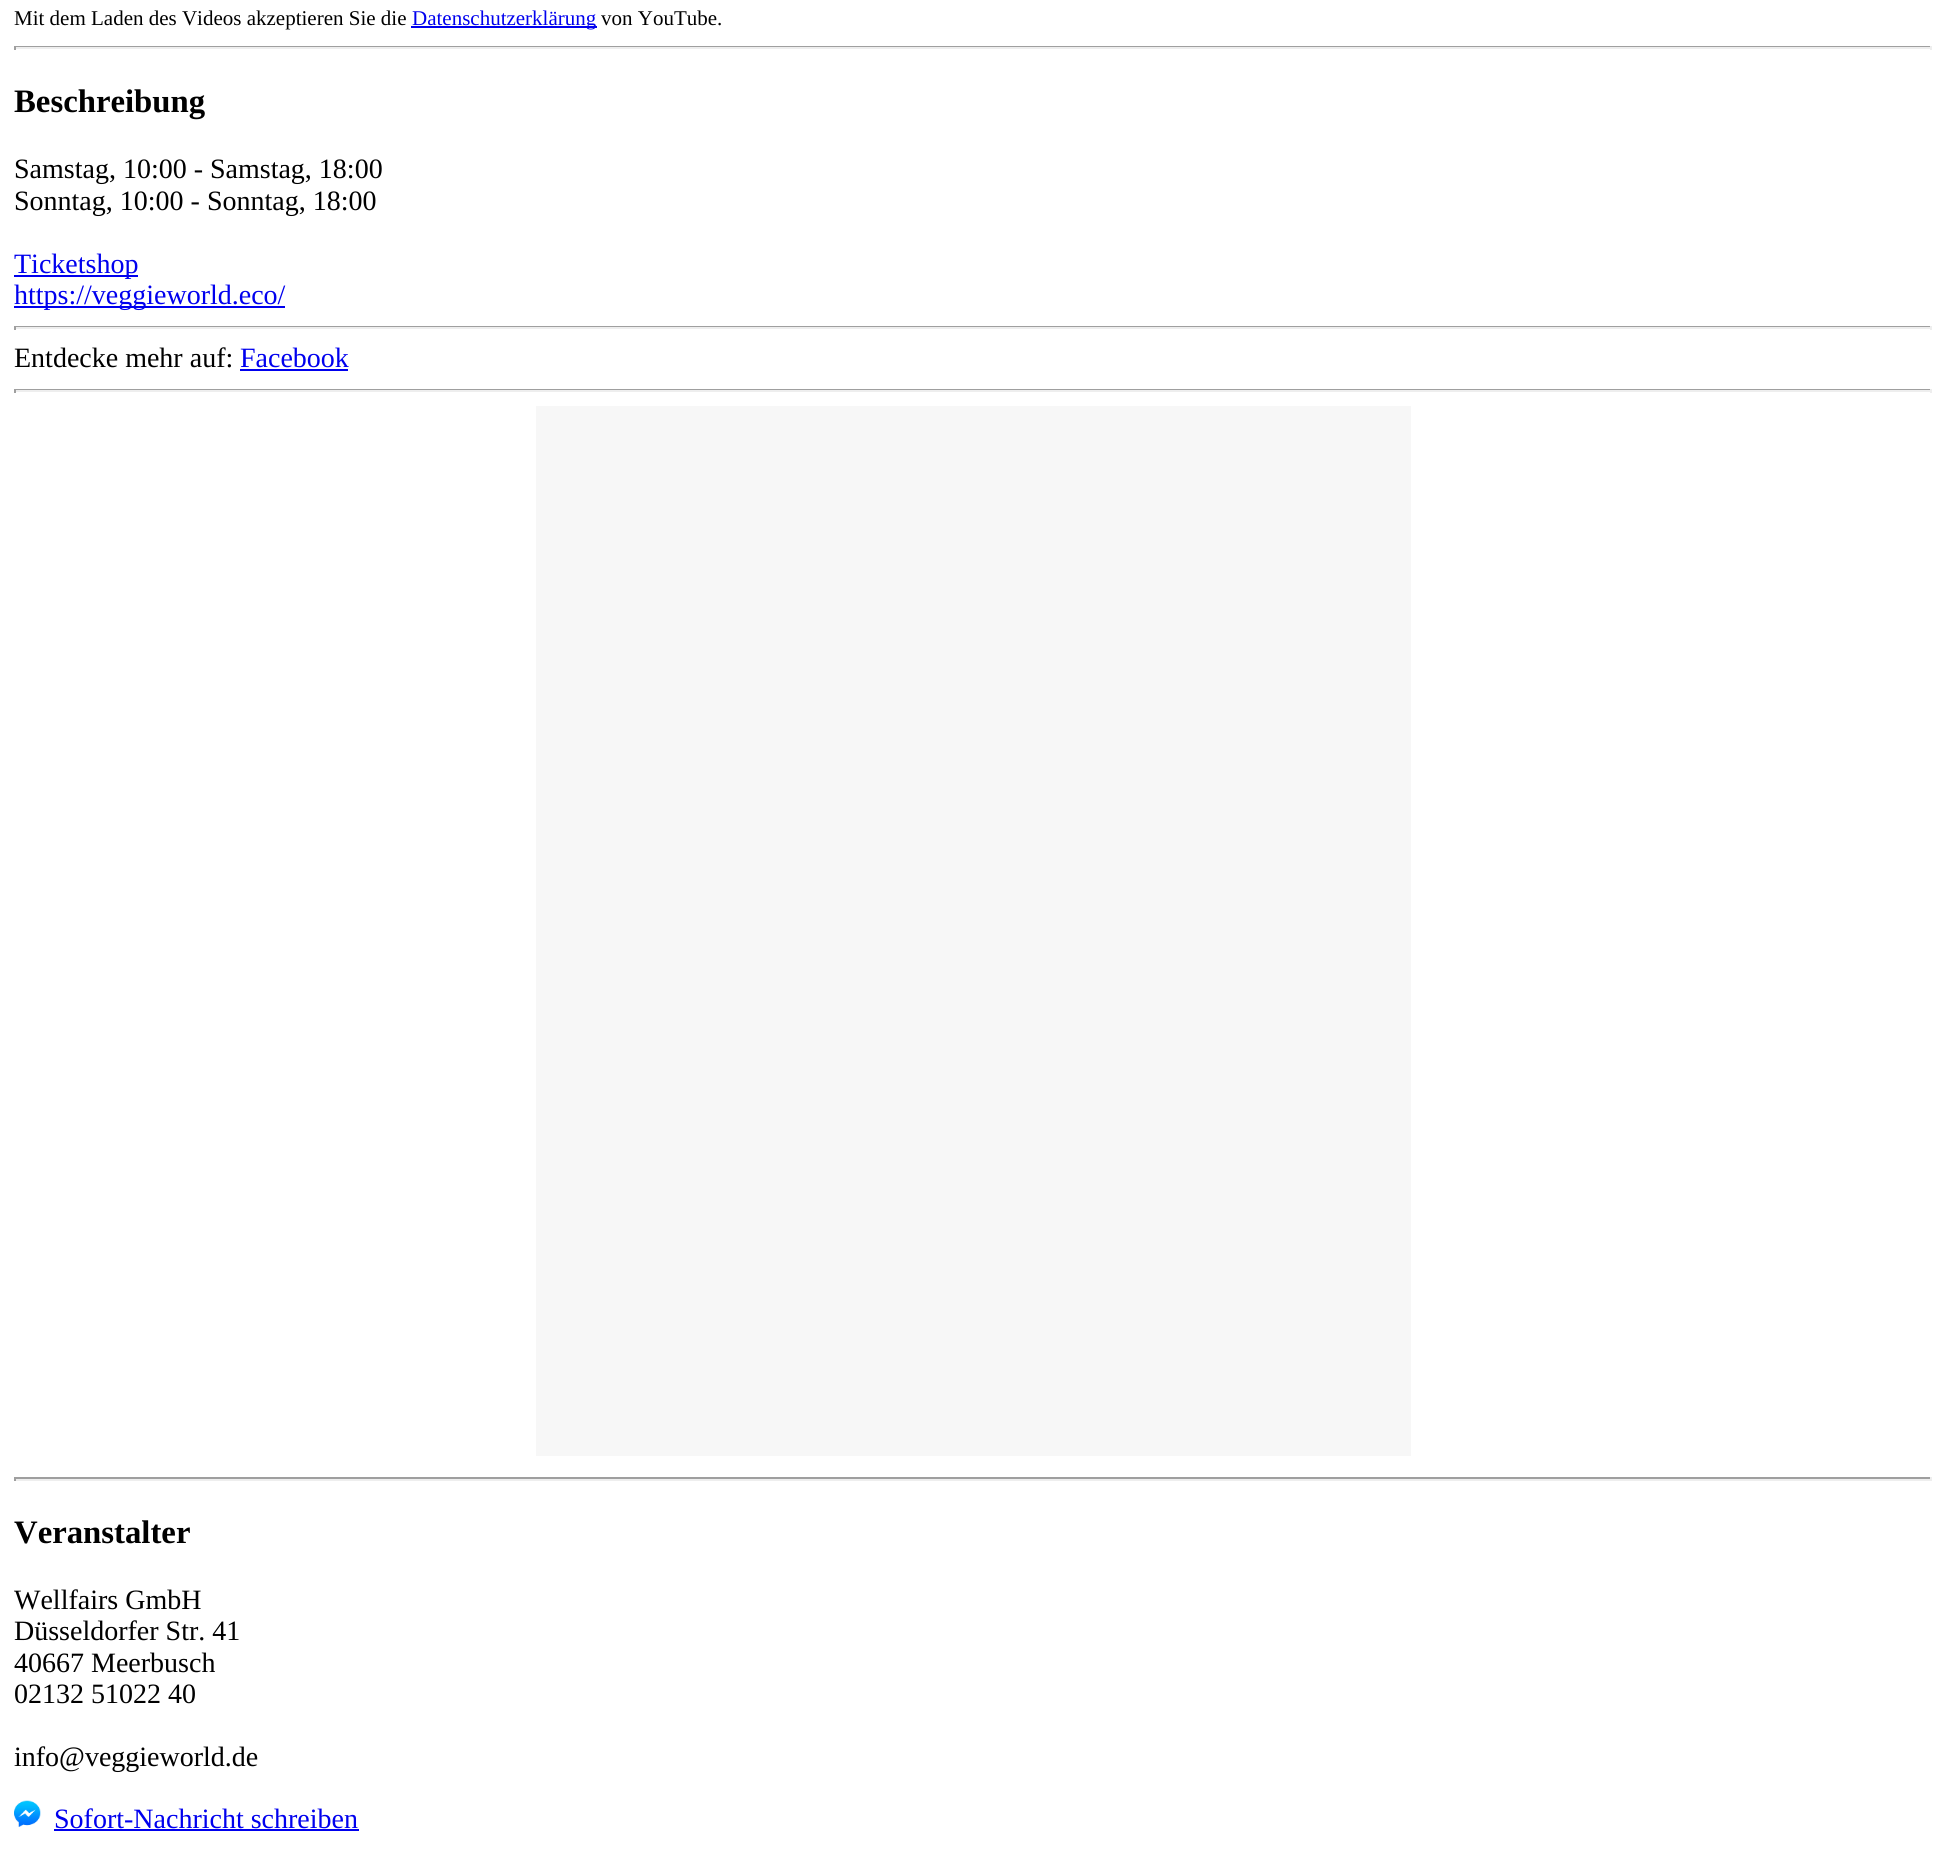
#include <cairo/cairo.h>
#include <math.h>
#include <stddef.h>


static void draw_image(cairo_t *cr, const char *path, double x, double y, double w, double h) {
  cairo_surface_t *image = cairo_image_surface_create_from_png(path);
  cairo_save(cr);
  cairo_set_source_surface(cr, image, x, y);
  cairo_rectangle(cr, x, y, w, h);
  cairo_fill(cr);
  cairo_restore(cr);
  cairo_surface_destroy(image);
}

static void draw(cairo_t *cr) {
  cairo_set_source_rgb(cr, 1, 1, 1);
  cairo_paint(cr);
  cairo_set_source_rgb(cr, 0, 0, 238 / 255.0);
  cairo_rectangle(cr, 411, 26, 186, 2);
  cairo_fill(cr);
  cairo_set_source_rgb(cr, 159 / 255.0, 159 / 255.0, 159 / 255.0);
  cairo_rectangle(cr, 14, 46, 1918, 1);
  cairo_fill(cr);
  cairo_set_source_rgb(cr, 238 / 255.0, 238 / 255.0, 238 / 255.0);
  cairo_rectangle(cr, 1930, 46, 2, 4);
  cairo_fill(cr);
  cairo_rectangle(cr, 14, 47, 1918, 2);
  cairo_fill(cr);
  cairo_set_source_rgb(cr, 159 / 255.0, 159 / 255.0, 159 / 255.0);
  cairo_rectangle(cr, 14, 46, 2, 4);
  cairo_fill(cr);
  cairo_set_source_rgb(cr, 0, 0, 238 / 255.0);
  cairo_rectangle(cr, 14, 275, 124, 2);
  cairo_fill(cr);
  cairo_rectangle(cr, 14, 306, 271, 2);
  cairo_fill(cr);
  cairo_set_source_rgb(cr, 159 / 255.0, 159 / 255.0, 159 / 255.0);
  cairo_rectangle(cr, 14, 326, 1918, 1);
  cairo_fill(cr);
  cairo_set_source_rgb(cr, 238 / 255.0, 238 / 255.0, 238 / 255.0);
  cairo_rectangle(cr, 1930, 326, 2, 4);
  cairo_fill(cr);
  cairo_rectangle(cr, 14, 327, 1918, 2);
  cairo_fill(cr);
  cairo_set_source_rgb(cr, 159 / 255.0, 159 / 255.0, 159 / 255.0);
  cairo_rectangle(cr, 14, 326, 2, 4);
  cairo_fill(cr);
  cairo_set_source_rgb(cr, 0, 0, 238 / 255.0);
  cairo_rectangle(cr, 240, 369, 108, 2);
  cairo_fill(cr);
  cairo_set_source_rgb(cr, 159 / 255.0, 159 / 255.0, 159 / 255.0);
  cairo_rectangle(cr, 14, 389, 1918, 1);
  cairo_fill(cr);
  cairo_set_source_rgb(cr, 238 / 255.0, 238 / 255.0, 238 / 255.0);
  cairo_rectangle(cr, 1930, 389, 2, 4);
  cairo_fill(cr);
  cairo_rectangle(cr, 14, 390, 1918, 2);
  cairo_fill(cr);
  cairo_set_source_rgb(cr, 159 / 255.0, 159 / 255.0, 159 / 255.0);
  cairo_rectangle(cr, 14, 389, 2, 4);
  cairo_fill(cr);
  cairo_set_source_rgb(cr, 247 / 255.0, 247 / 255.0, 247 / 255.0);
  cairo_rectangle(cr, 536, 406, 875, 1050);
  cairo_fill(cr);
  cairo_set_source_rgb(cr, 159 / 255.0, 159 / 255.0, 159 / 255.0);
  cairo_rectangle(cr, 14, 1477, 1918, 2);
  cairo_fill(cr);
  cairo_set_source_rgb(cr, 238 / 255.0, 238 / 255.0, 238 / 255.0);
  cairo_rectangle(cr, 1930, 1477, 2, 4);
  cairo_fill(cr);
  cairo_rectangle(cr, 14, 1479, 1918, 2);
  cairo_fill(cr);
  cairo_set_source_rgb(cr, 159 / 255.0, 159 / 255.0, 159 / 255.0);
  cairo_rectangle(cr, 14, 1477, 2, 4);
  cairo_fill(cr);
  draw_image(cr, "images/1.png", 14, 1800, 27, 27);
  cairo_set_source_rgb(cr, 0, 0, 238 / 255.0);
  cairo_rectangle(cr, 54, 1829, 305, 2);
  cairo_fill(cr);
  cairo_select_font_face(cr, "Liberation Serif", CAIRO_FONT_SLANT_NORMAL, CAIRO_FONT_WEIGHT_NORMAL);
  cairo_set_font_size(cr, 21);
  cairo_set_source_rgb(cr, 0, 0, 0);
  cairo_move_to(cr, 14, 25);
  cairo_show_text(cr, "Mit dem Laden des Videos akzeptieren Sie die");
  cairo_set_source_rgb(cr, 0, 0, 238 / 255.0);
  cairo_move_to(cr, 412, 25);
  cairo_show_text(cr, "Datenschutzerklärung");
  cairo_set_source_rgb(cr, 0, 0, 0);
  cairo_move_to(cr, 601, 25);
  cairo_show_text(cr, "von YouTube.");
  cairo_select_font_face(cr, "Liberation Serif", CAIRO_FONT_SLANT_NORMAL, CAIRO_FONT_WEIGHT_BOLD);
  cairo_set_font_size(cr, 32.75);
  cairo_move_to(cr, 14, 112);
  cairo_show_text(cr, "Beschreibung");
  cairo_select_font_face(cr, "Liberation Serif", CAIRO_FONT_SLANT_NORMAL, CAIRO_FONT_WEIGHT_NORMAL);
  cairo_set_font_size(cr, 28);
  cairo_move_to(cr, 14, 178);
  cairo_show_text(cr, "Samstag, 10:00 - Samstag, 18:00");
  cairo_move_to(cr, 14, 210);
  cairo_show_text(cr, "Sonntag, 10:00 - Sonntag, 18:00");
  cairo_set_source_rgb(cr, 0, 0, 238 / 255.0);
  cairo_move_to(cr, 14, 273);
  cairo_show_text(cr, "Ticketshop");
  cairo_move_to(cr, 14, 304);
  cairo_show_text(cr, "https://veggieworld.eco/");
  cairo_set_source_rgb(cr, 0, 0, 0);
  cairo_move_to(cr, 14, 367);
  cairo_show_text(cr, "Entdecke mehr auf:");
  cairo_set_source_rgb(cr, 0, 0, 238 / 255.0);
  cairo_move_to(cr, 240, 367);
  cairo_show_text(cr, "Facebook");
  cairo_select_font_face(cr, "Liberation Serif", CAIRO_FONT_SLANT_NORMAL, CAIRO_FONT_WEIGHT_BOLD);
  cairo_set_font_size(cr, 32.75);
  cairo_set_source_rgb(cr, 0, 0, 0);
  cairo_move_to(cr, 14, 1543);
  cairo_show_text(cr, "Veranstalter");
  cairo_select_font_face(cr, "Liberation Serif", CAIRO_FONT_SLANT_NORMAL, CAIRO_FONT_WEIGHT_NORMAL);
  cairo_set_font_size(cr, 28);
  cairo_move_to(cr, 14, 1609);
  cairo_show_text(cr, "Wellfairs GmbH");
  cairo_move_to(cr, 14, 1640);
  cairo_show_text(cr, "Düsseldorfer Str. 41");
  cairo_move_to(cr, 14, 1672);
  cairo_show_text(cr, "40667 Meerbusch");
  cairo_move_to(cr, 14, 1703);
  cairo_show_text(cr, "02132 51022 40");
  cairo_move_to(cr, 14, 1766);
  cairo_show_text(cr, "info@veggieworld.de");
  cairo_set_source_rgb(cr, 0, 0, 238 / 255.0);
  cairo_move_to(cr, 54, 1828);
  cairo_show_text(cr, "Sofort-Nachricht schreiben");
}

int main(void) {
  cairo_surface_t *surface = cairo_image_surface_create(CAIRO_FORMAT_RGB24, 1946, 1856);
  cairo_t *cr = cairo_create(surface);
  cairo_font_options_t *options = cairo_font_options_create();
  cairo_font_options_set_hint_metrics(options, CAIRO_HINT_METRICS_OFF);
  cairo_font_options_set_hint_style(options, CAIRO_HINT_STYLE_NONE);
  cairo_set_font_options(cr, options);
  cairo_set_miter_limit(cr, 4);
  draw(cr);
  cairo_surface_write_to_png(surface, "out.png");
  cairo_font_options_destroy(options);
  cairo_destroy(cr);
  cairo_surface_destroy(surface);
  return 0;
}
